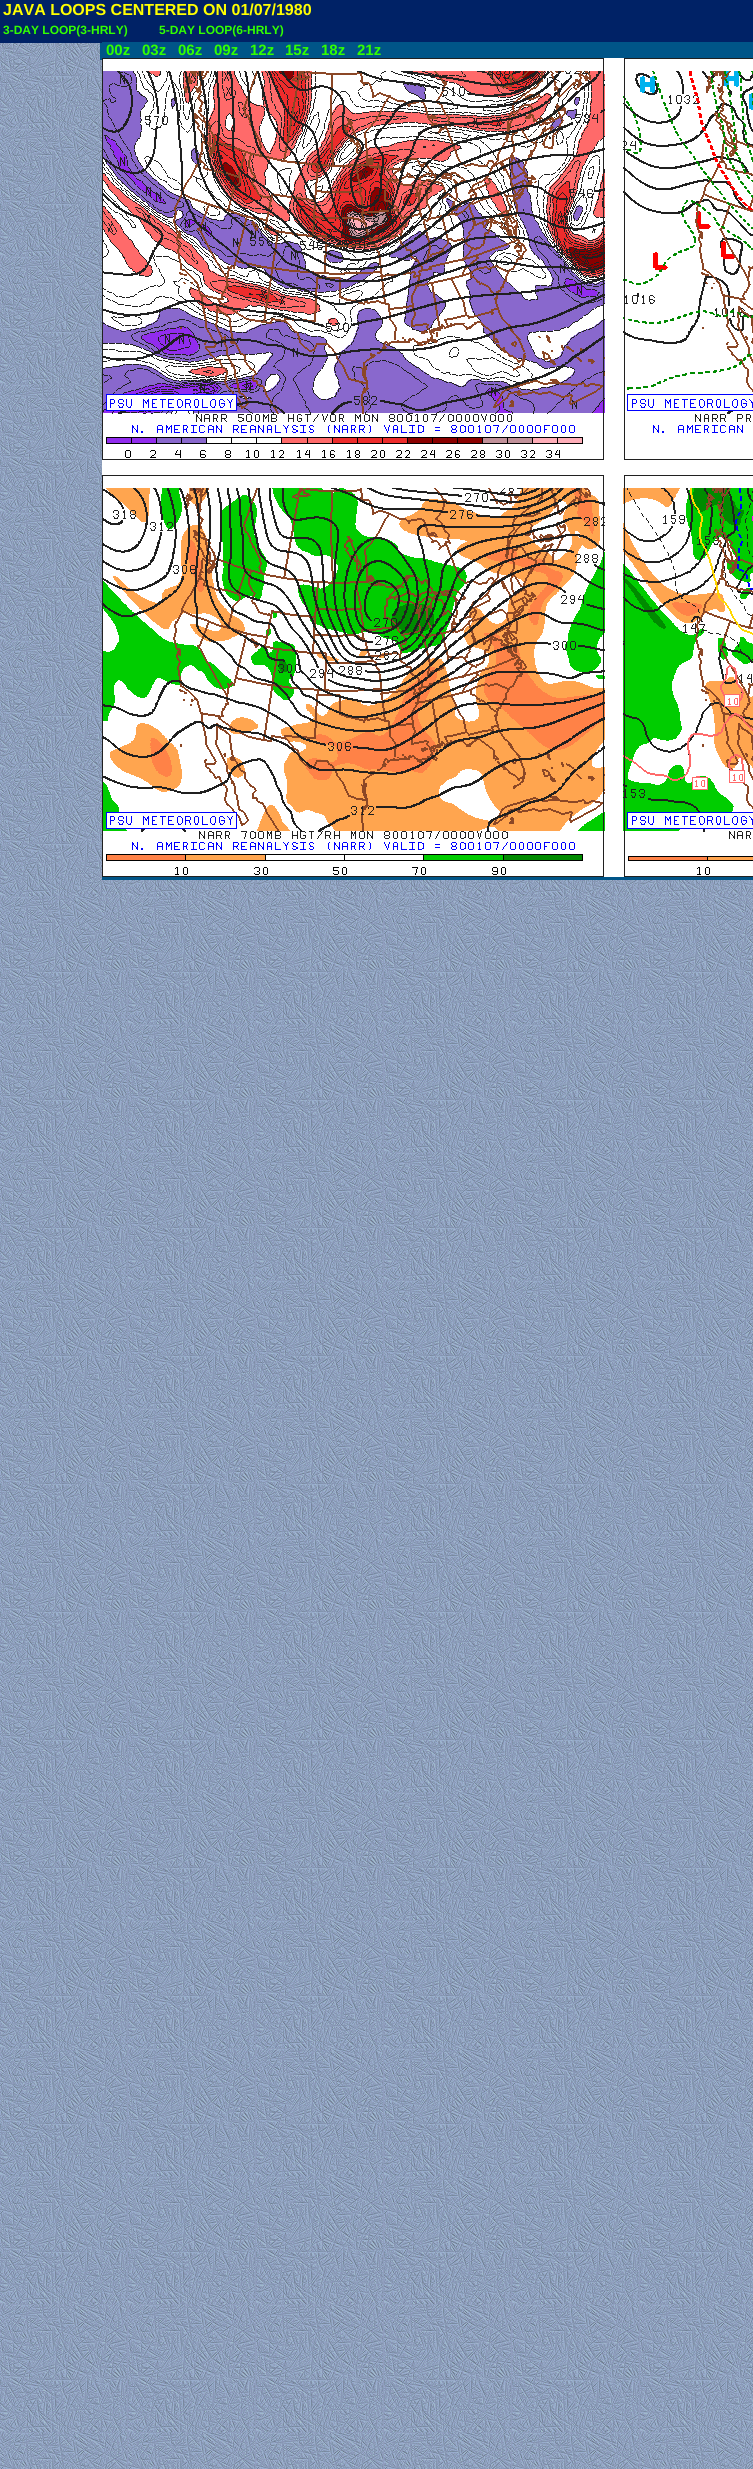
#include <cairo/cairo.h>
#include <math.h>
#include <stddef.h>


static void draw_image(cairo_t *cr, const char *path, double x, double y, double w, double h) {
  cairo_surface_t *image = cairo_image_surface_create_from_png(path);
  cairo_save(cr);
  cairo_set_source_surface(cr, image, x, y);
  cairo_rectangle(cr, x, y, w, h);
  cairo_fill(cr);
  cairo_restore(cr);
  cairo_surface_destroy(image);
}

static void draw(cairo_t *cr) {
  cairo_set_source_rgb(cr, 1, 1, 1);
  cairo_paint(cr);
  draw_image(cr, "images/1.png", 0, 43, 753, 2426);
  cairo_set_source_rgb(cr, 0, 34 / 255.0, 102 / 255.0);
  cairo_rectangle(cr, 0, 0, 753, 43);
  cairo_fill(cr);
  cairo_set_source_rgb(cr, 0, 85 / 255.0, 136 / 255.0);
  cairo_rectangle(cr, 100, 43, 2, 17);
  cairo_fill(cr);
  cairo_rectangle(cr, 102, 42, 651, 16);
  cairo_fill(cr);
  cairo_rectangle(cr, 102, 877, 651, 3);
  cairo_fill(cr);
  draw_image(cr, "images/2.png", 102, 58, 651, 819);
  cairo_select_font_face(cr, "Liberation Sans", CAIRO_FONT_SLANT_NORMAL, CAIRO_FONT_WEIGHT_BOLD);
  cairo_set_font_size(cr, 16);
  cairo_set_source_rgb(cr, 1, 1, 0);
  cairo_move_to(cr, 3, 15);
  cairo_show_text(cr, "JAVA LOOPS CENTERED ON 01/07/1980");
  cairo_set_font_size(cr, 12);
  cairo_set_source_rgb(cr, 51 / 255.0, 1, 0);
  cairo_move_to(cr, 3, 34);
  cairo_show_text(cr, "3-DAY LOOP(3-HRLY)");
  cairo_move_to(cr, 159, 34);
  cairo_show_text(cr, "5-DAY LOOP(6-HRLY)");
  cairo_set_font_size(cr, 15);
  cairo_move_to(cr, 106, 55);
  cairo_show_text(cr, "00z");
  cairo_move_to(cr, 142, 55);
  cairo_show_text(cr, "03z");
  cairo_move_to(cr, 178, 55);
  cairo_show_text(cr, "06z");
  cairo_move_to(cr, 214, 55);
  cairo_show_text(cr, "09z");
  cairo_move_to(cr, 250, 55);
  cairo_show_text(cr, "12z");
  cairo_move_to(cr, 285, 55);
  cairo_show_text(cr, "15z");
  cairo_move_to(cr, 321, 55);
  cairo_show_text(cr, "18z");
  cairo_move_to(cr, 357, 55);
  cairo_show_text(cr, "21z");
}

int main(void) {
  cairo_surface_t *surface = cairo_image_surface_create(CAIRO_FORMAT_RGB24, 753, 2469);
  cairo_t *cr = cairo_create(surface);
  cairo_font_options_t *options = cairo_font_options_create();
  cairo_font_options_set_hint_metrics(options, CAIRO_HINT_METRICS_OFF);
  cairo_font_options_set_hint_style(options, CAIRO_HINT_STYLE_NONE);
  cairo_set_font_options(cr, options);
  cairo_set_miter_limit(cr, 4);
  draw(cr);
  cairo_surface_write_to_png(surface, "out.png");
  cairo_font_options_destroy(options);
  cairo_destroy(cr);
  cairo_surface_destroy(surface);
  return 0;
}
